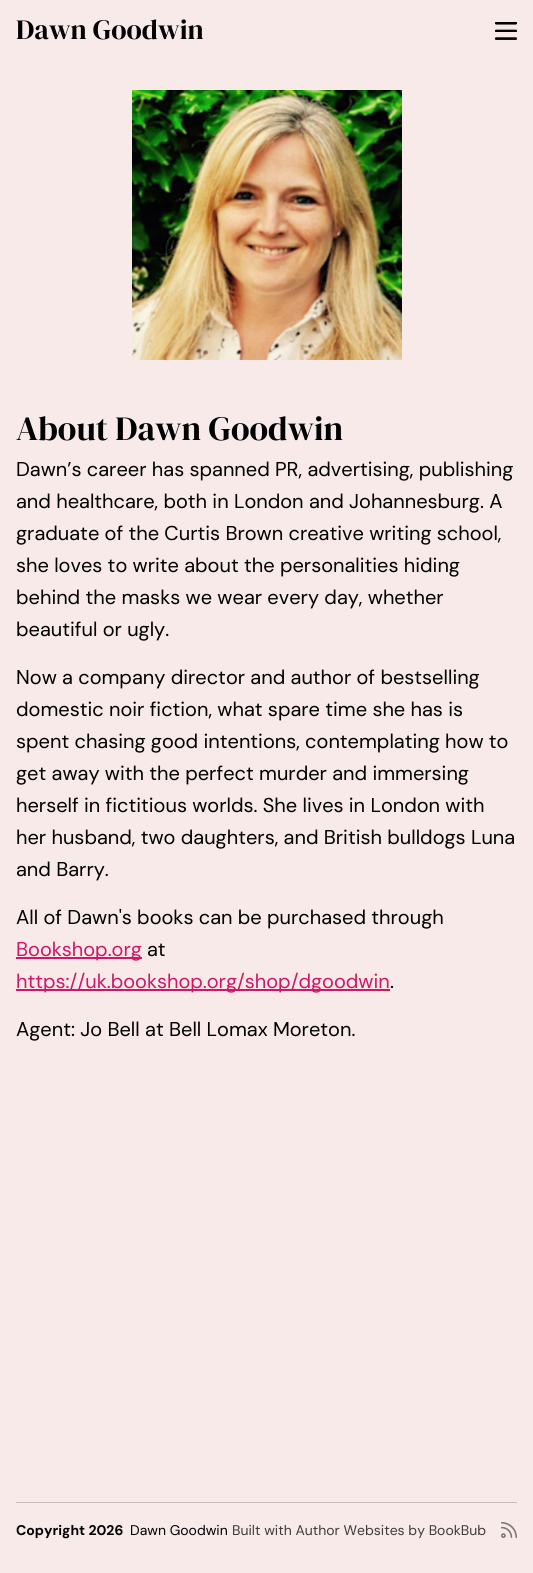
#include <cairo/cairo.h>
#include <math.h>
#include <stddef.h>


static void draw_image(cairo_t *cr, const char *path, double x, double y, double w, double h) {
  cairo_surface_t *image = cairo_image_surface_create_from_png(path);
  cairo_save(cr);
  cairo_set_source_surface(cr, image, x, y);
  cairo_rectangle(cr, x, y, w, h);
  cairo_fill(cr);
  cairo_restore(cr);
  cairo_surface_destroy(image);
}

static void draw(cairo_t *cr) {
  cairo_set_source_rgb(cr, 249 / 255.0, 234 / 255.0, 234 / 255.0);
  cairo_paint(cr);
  draw_image(cr, "images/1.png", 495, 22, 22, 18);
  draw_image(cr, "images/2.png", 132, 90, 270, 270);
  cairo_set_source_rgb(cr, 211 / 255.0, 20 / 255.0, 103 / 255.0);
  cairo_rectangle(cr, 16, 957, 126, 2);
  cairo_fill(cr);
  cairo_rectangle(cr, 16, 989, 374, 2);
  cairo_fill(cr);
  cairo_set_source_rgb(cr, 199 / 255.0, 187 / 255.0, 187 / 255.0);
  cairo_rectangle(cr, 16, 1502, 501, 1);
  cairo_fill(cr);
  draw_image(cr, "images/3.png", 501, 1522, 16, 16);
  cairo_select_font_face(cr, "DM Serif Display", CAIRO_FONT_SLANT_NORMAL, CAIRO_FONT_WEIGHT_NORMAL);
  cairo_set_font_size(cr, 28);
  cairo_set_source_rgb(cr, 0, 0, 0);
  cairo_move_to(cr, 16, 39);
  cairo_show_text(cr, "Dawn Goodwin");
  cairo_set_font_size(cr, 34);
  cairo_move_to(cr, 16, 440);
  cairo_show_text(cr, "About Dawn Goodwin");
  cairo_select_font_face(cr, "DM Sans", CAIRO_FONT_SLANT_NORMAL, CAIRO_FONT_WEIGHT_NORMAL);
  cairo_set_font_size(cr, 20);
  cairo_move_to(cr, 16, 476);
  cairo_show_text(cr, "Dawn’s career has spanned PR, advertising, publishing");
  cairo_move_to(cr, 16, 508);
  cairo_show_text(cr, "and healthcare, both in London and Johannesburg. A");
  cairo_move_to(cr, 16, 540);
  cairo_show_text(cr, "graduate of the Curtis Brown creative writing school,");
  cairo_move_to(cr, 16, 572);
  cairo_show_text(cr, "she loves to write about the personalities hiding");
  cairo_move_to(cr, 16, 604);
  cairo_show_text(cr, "behind the masks we wear every day, whether");
  cairo_move_to(cr, 16, 636);
  cairo_show_text(cr, "beautiful or ugly.");
  cairo_move_to(cr, 16, 684);
  cairo_show_text(cr, "Now a company director and author of bestselling");
  cairo_move_to(cr, 16, 716);
  cairo_show_text(cr, "domestic noir fiction, what spare time she has is");
  cairo_move_to(cr, 16, 748);
  cairo_show_text(cr, "spent chasing good intentions, contemplating how to");
  cairo_move_to(cr, 16, 780);
  cairo_show_text(cr, "get away with the perfect murder and immersing");
  cairo_move_to(cr, 16, 812);
  cairo_show_text(cr, "herself in fictitious worlds. She lives in London with");
  cairo_move_to(cr, 16, 844);
  cairo_show_text(cr, "her husband, two daughters, and British bulldogs Luna");
  cairo_move_to(cr, 16, 876);
  cairo_show_text(cr, "and Barry.");
  cairo_move_to(cr, 16, 924);
  cairo_show_text(cr, "All of Dawn's books can be purchased through");
  cairo_set_source_rgb(cr, 211 / 255.0, 20 / 255.0, 103 / 255.0);
  cairo_move_to(cr, 16, 956);
  cairo_show_text(cr, "Bookshop.org");
  cairo_set_source_rgb(cr, 0, 0, 0);
  cairo_move_to(cr, 147, 956);
  cairo_show_text(cr, "at");
  cairo_set_source_rgb(cr, 211 / 255.0, 20 / 255.0, 103 / 255.0);
  cairo_move_to(cr, 16, 988);
  cairo_show_text(cr, "https://uk.bookshop.org/shop/dgoodwin");
  cairo_set_source_rgb(cr, 0, 0, 0);
  cairo_move_to(cr, 390, 988);
  cairo_show_text(cr, ".");
  cairo_move_to(cr, 16, 1036);
  cairo_show_text(cr, "Agent: Jo Bell at Bell Lomax Moreton.");
  cairo_select_font_face(cr, "DM Sans", CAIRO_FONT_SLANT_NORMAL, CAIRO_FONT_WEIGHT_BOLD);
  cairo_set_font_size(cr, 14);
  cairo_move_to(cr, 16, 1535);
  cairo_show_text(cr, "Copyright 2026");
  cairo_select_font_face(cr, "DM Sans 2", CAIRO_FONT_SLANT_NORMAL, CAIRO_FONT_WEIGHT_NORMAL);
  cairo_move_to(cr, 130, 1535);
  cairo_show_text(cr, "Dawn Goodwin");
  cairo_set_source_rgb(cr, 62 / 255.0, 59 / 255.0, 59 / 255.0);
  cairo_move_to(cr, 232, 1535);
  cairo_show_text(cr, "Built with Author Websites by BookBub");
}

int main(void) {
  cairo_surface_t *surface = cairo_image_surface_create(CAIRO_FORMAT_RGB24, 533, 1573);
  cairo_t *cr = cairo_create(surface);
  cairo_font_options_t *options = cairo_font_options_create();
  cairo_font_options_set_hint_metrics(options, CAIRO_HINT_METRICS_OFF);
  cairo_font_options_set_hint_style(options, CAIRO_HINT_STYLE_NONE);
  cairo_set_font_options(cr, options);
  cairo_set_miter_limit(cr, 4);
  draw(cr);
  cairo_surface_write_to_png(surface, "out.png");
  cairo_font_options_destroy(options);
  cairo_destroy(cr);
  cairo_surface_destroy(surface);
  return 0;
}
